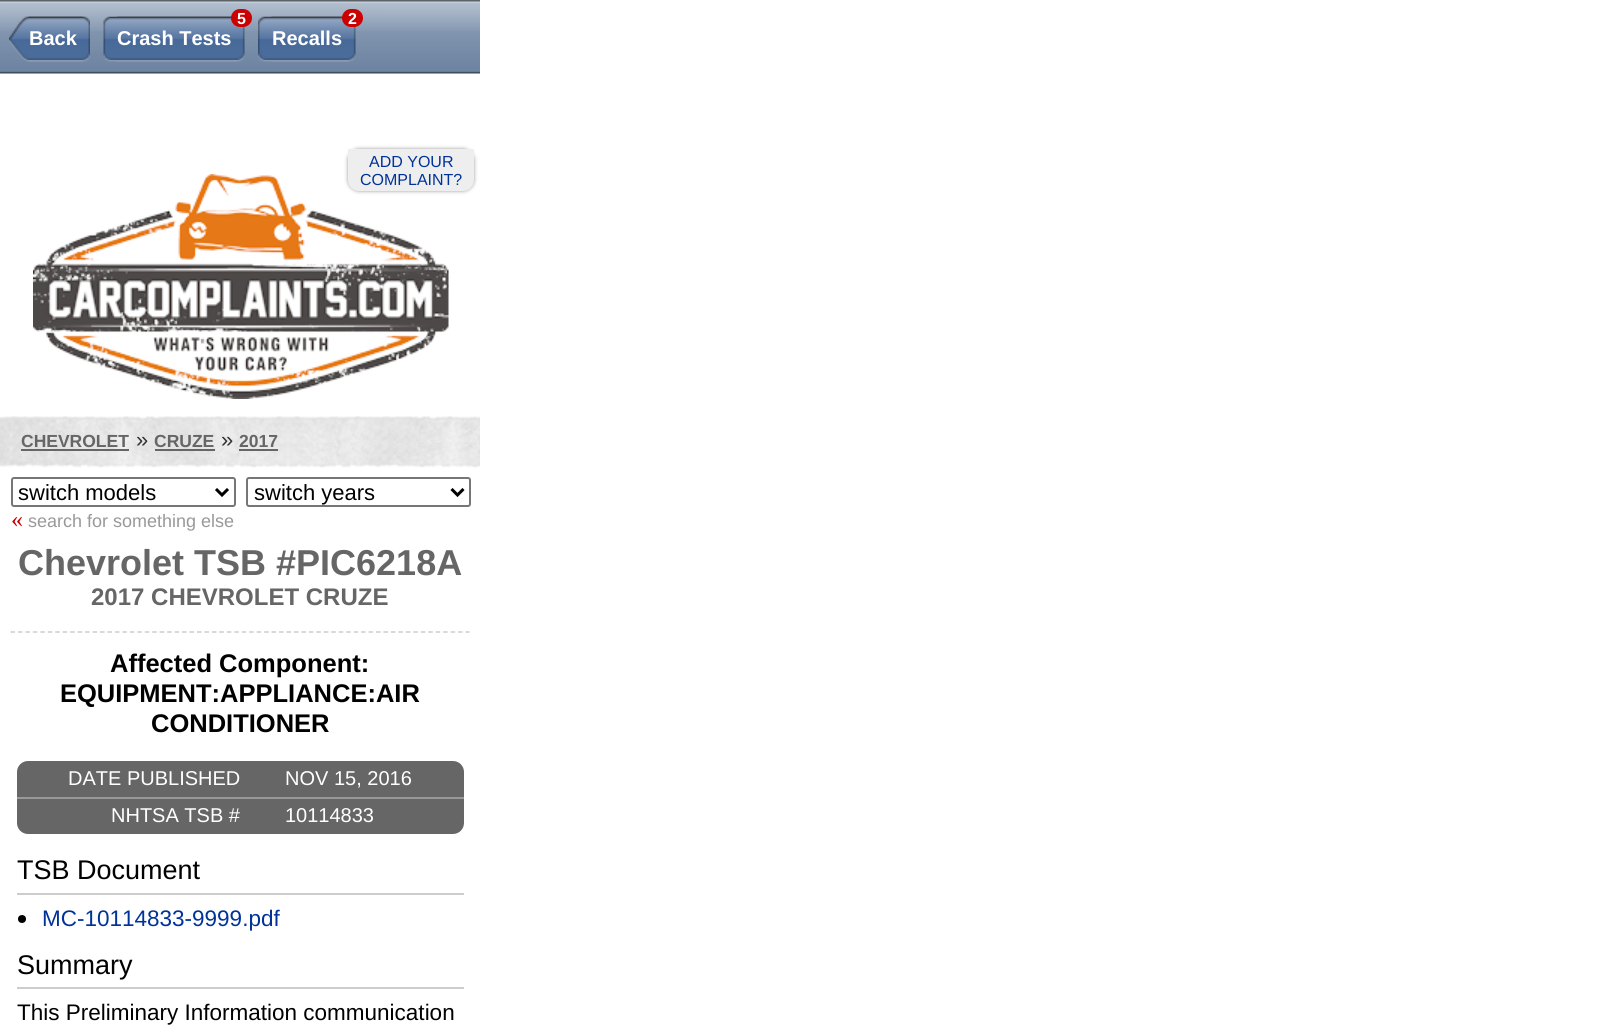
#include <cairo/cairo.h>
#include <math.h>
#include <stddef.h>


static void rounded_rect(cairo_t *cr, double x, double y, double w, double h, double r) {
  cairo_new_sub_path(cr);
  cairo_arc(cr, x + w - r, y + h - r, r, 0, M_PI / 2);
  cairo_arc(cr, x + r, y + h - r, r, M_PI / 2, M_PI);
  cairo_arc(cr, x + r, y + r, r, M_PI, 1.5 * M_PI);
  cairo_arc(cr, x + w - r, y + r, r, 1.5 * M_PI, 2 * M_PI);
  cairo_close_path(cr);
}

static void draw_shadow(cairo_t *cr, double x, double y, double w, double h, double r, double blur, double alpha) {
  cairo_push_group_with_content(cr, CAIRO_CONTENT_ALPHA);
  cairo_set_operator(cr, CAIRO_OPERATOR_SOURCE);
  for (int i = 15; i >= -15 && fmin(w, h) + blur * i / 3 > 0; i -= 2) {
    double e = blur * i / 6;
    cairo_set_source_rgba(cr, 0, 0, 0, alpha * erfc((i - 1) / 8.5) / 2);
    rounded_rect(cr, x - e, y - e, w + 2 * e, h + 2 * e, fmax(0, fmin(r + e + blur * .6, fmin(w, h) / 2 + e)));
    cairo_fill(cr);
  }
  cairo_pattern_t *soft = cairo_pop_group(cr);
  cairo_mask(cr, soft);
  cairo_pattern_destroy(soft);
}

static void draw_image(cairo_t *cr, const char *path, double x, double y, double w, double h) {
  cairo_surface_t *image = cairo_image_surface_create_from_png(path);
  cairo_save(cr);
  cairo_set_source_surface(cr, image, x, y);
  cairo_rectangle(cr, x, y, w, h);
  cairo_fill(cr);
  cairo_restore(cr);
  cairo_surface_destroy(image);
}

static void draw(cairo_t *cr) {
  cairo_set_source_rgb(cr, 1, 1, 1);
  cairo_paint(cr);
  draw_image(cr, "images/1.png", 0, 0, 480, 74);
  draw_image(cr, "images/2.png", 9, 16, 74, 46);
  draw_image(cr, "images/3.png", 28, 16, 62, 46);
  draw_image(cr, "images/4.png", 103, 16, 134, 46);
  draw_image(cr, "images/5.png", 117, 16, 128, 46);
  cairo_set_source_rgb(cr, 204 / 255.0, 0, 0);
  rounded_rect(cr, 231, 9, 21, 18, 9);
  cairo_fill(cr);
  draw_image(cr, "images/6.png", 258, 16, 90, 46);
  draw_image(cr, "images/7.png", 271, 16, 85, 46);
  rounded_rect(cr, 342, 9, 21, 18, 9);
  cairo_fill(cr);
  draw_image(cr, "images/8.png", 0, 416, 480, 52);
  cairo_set_source_rgb(cr, 102 / 255.0, 102 / 255.0, 102 / 255.0);
  cairo_rectangle(cr, 21, 449, 108, 2);
  cairo_fill(cr);
  cairo_rectangle(cr, 155, 449, 60, 2);
  cairo_fill(cr);
  cairo_rectangle(cr, 239, 449, 39, 2);
  cairo_fill(cr);
  rounded_rect(cr, 12, 478, 223, 28, 2);
  cairo_set_source_rgb(cr, 118 / 255.0, 118 / 255.0, 118 / 255.0);
  cairo_stroke(cr);
  cairo_new_path(cr);
  cairo_move_to(cr, 216, 489);
  cairo_line_to(cr, 222, 495);
  cairo_line_to(cr, 228, 489);
  cairo_set_source_rgb(cr, 0, 0, 0);
  cairo_set_line_width(cr, 3);
  cairo_stroke(cr);
  rounded_rect(cr, 247, 478, 223, 28, 2);
  cairo_set_source_rgb(cr, 118 / 255.0, 118 / 255.0, 118 / 255.0);
  cairo_set_line_width(cr, 2);
  cairo_stroke(cr);
  cairo_new_path(cr);
  cairo_move_to(cr, 451.5, 489);
  cairo_line_to(cr, 457.5, 495);
  cairo_line_to(cr, 463.5, 489);
  cairo_set_source_rgb(cr, 0, 0, 0);
  cairo_set_line_width(cr, 3);
  cairo_stroke(cr);
  cairo_new_path(cr);
  cairo_move_to(cr, 10.5, 632);
  cairo_line_to(cr, 469.5, 632);
  cairo_set_source_rgb(cr, 204 / 255.0, 204 / 255.0, 204 / 255.0);
  cairo_set_line_width(cr, 1.5);
  cairo_set_dash(cr, (double[]){4.5, 2.96}, 2, 0);
  cairo_stroke(cr);
  cairo_set_source_rgb(cr, 102 / 255.0, 102 / 255.0, 102 / 255.0);
  rounded_rect(cr, 17, 761, 447, 73, 11);
  cairo_fill(cr);
  cairo_set_source_rgb(cr, 153 / 255.0, 153 / 255.0, 153 / 255.0);
  cairo_rectangle(cr, 17, 797, 447, 2);
  cairo_fill(cr);
  cairo_set_source_rgb(cr, 204 / 255.0, 204 / 255.0, 204 / 255.0);
  cairo_rectangle(cr, 17, 893, 447, 2);
  cairo_fill(cr);
  cairo_set_source_rgb(cr, 0, 0, 0);
  cairo_arc(cr, 22, 919, 4, 0, 2 * M_PI);
  cairo_fill(cr);
  cairo_set_source_rgb(cr, 204 / 255.0, 204 / 255.0, 204 / 255.0);
  cairo_rectangle(cr, 17, 987, 447, 2);
  cairo_fill(cr);
  draw_image(cr, "images/9.png", 33, 174, 416, 225);
  cairo_set_source_rgb(cr, 153 / 255.0, 153 / 255.0, 153 / 255.0);
  draw_shadow(cr, 348, 149, 126, 42, 11, 2, 1);
  cairo_set_source_rgb(cr, 238 / 255.0, 238 / 255.0, 238 / 255.0);
  cairo_new_path(cr);
  cairo_move_to(cr, 348, 149);
  cairo_line_to(cr, 474, 149);
  cairo_line_to(cr, 474, 180);
  cairo_curve_to(cr, 474, 186, 469, 191, 463, 191);
  cairo_line_to(cr, 359, 191);
  cairo_curve_to(cr, 353, 191, 348, 186, 348, 180);
  cairo_close_path(cr);
  cairo_fill(cr);
  cairo_select_font_face(cr, "Liberation Sans", CAIRO_FONT_SLANT_NORMAL, CAIRO_FONT_WEIGHT_BOLD);
  cairo_set_font_size(cr, 20);
  cairo_set_source_rgb(cr, 1, 1, 1);
  cairo_move_to(cr, 29, 45);
  cairo_show_text(cr, "Back");
  cairo_set_font_size(cr, 16);
  cairo_move_to(cr, 237, 24);
  cairo_show_text(cr, "5");
  cairo_set_font_size(cr, 20);
  cairo_move_to(cr, 117, 45);
  cairo_show_text(cr, "Crash Tests");
  cairo_set_font_size(cr, 16);
  cairo_move_to(cr, 348, 24);
  cairo_show_text(cr, "2");
  cairo_set_font_size(cr, 20);
  cairo_move_to(cr, 272, 45);
  cairo_show_text(cr, "Recalls");
  cairo_set_font_size(cr, 17.5);
  cairo_set_source_rgb(cr, 102 / 255.0, 102 / 255.0, 102 / 255.0);
  cairo_move_to(cr, 21, 447);
  cairo_show_text(cr, "CHEVROLET");
  cairo_select_font_face(cr, "Liberation Sans", CAIRO_FONT_SLANT_NORMAL, CAIRO_FONT_WEIGHT_NORMAL);
  cairo_set_font_size(cr, 22);
  cairo_set_source_rgb(cr, 51 / 255.0, 51 / 255.0, 51 / 255.0);
  cairo_move_to(cr, 136, 447);
  cairo_show_text(cr, "»");
  cairo_select_font_face(cr, "Liberation Sans", CAIRO_FONT_SLANT_NORMAL, CAIRO_FONT_WEIGHT_BOLD);
  cairo_set_font_size(cr, 17.5);
  cairo_set_source_rgb(cr, 102 / 255.0, 102 / 255.0, 102 / 255.0);
  cairo_move_to(cr, 154, 447);
  cairo_show_text(cr, "CRUZE");
  cairo_select_font_face(cr, "Liberation Sans", CAIRO_FONT_SLANT_NORMAL, CAIRO_FONT_WEIGHT_NORMAL);
  cairo_set_font_size(cr, 22);
  cairo_set_source_rgb(cr, 51 / 255.0, 51 / 255.0, 51 / 255.0);
  cairo_move_to(cr, 221, 447);
  cairo_show_text(cr, "»");
  cairo_select_font_face(cr, "Liberation Sans", CAIRO_FONT_SLANT_NORMAL, CAIRO_FONT_WEIGHT_BOLD);
  cairo_set_font_size(cr, 17.5);
  cairo_set_source_rgb(cr, 102 / 255.0, 102 / 255.0, 102 / 255.0);
  cairo_move_to(cr, 239, 447);
  cairo_show_text(cr, "2017");
  cairo_select_font_face(cr, "Liberation Sans", CAIRO_FONT_SLANT_NORMAL, CAIRO_FONT_WEIGHT_NORMAL);
  cairo_set_font_size(cr, 22);
  cairo_set_source_rgb(cr, 0, 0, 0);
  cairo_move_to(cr, 18, 500);
  cairo_show_text(cr, "switch models");
  cairo_move_to(cr, 254, 500);
  cairo_show_text(cr, "switch years");
  cairo_select_font_face(cr, "Liberation Serif", CAIRO_FONT_SLANT_NORMAL, CAIRO_FONT_WEIGHT_NORMAL);
  cairo_set_font_size(cr, 24);
  cairo_set_source_rgb(cr, 204 / 255.0, 0, 0);
  cairo_move_to(cr, 11, 527);
  cairo_show_text(cr, "«");
  cairo_select_font_face(cr, "Liberation Sans", CAIRO_FONT_SLANT_NORMAL, CAIRO_FONT_WEIGHT_NORMAL);
  cairo_set_font_size(cr, 18);
  cairo_set_source_rgb(cr, 153 / 255.0, 153 / 255.0, 153 / 255.0);
  cairo_move_to(cr, 28, 527);
  cairo_show_text(cr, "search for something else");
  cairo_select_font_face(cr, "Liberation Sans", CAIRO_FONT_SLANT_NORMAL, CAIRO_FONT_WEIGHT_BOLD);
  cairo_set_font_size(cr, 36);
  cairo_set_source_rgb(cr, 102 / 255.0, 102 / 255.0, 102 / 255.0);
  cairo_move_to(cr, 18, 575);
  cairo_show_text(cr, "Chevrolet TSB #PIC6218A");
  cairo_set_font_size(cr, 24);
  cairo_move_to(cr, 91, 605);
  cairo_show_text(cr, "2017 CHEVROLET CRUZE");
  cairo_set_font_size(cr, 25.5);
  cairo_set_source_rgb(cr, 0, 0, 0);
  cairo_move_to(cr, 110, 672);
  cairo_show_text(cr, "Affected Component:");
  cairo_move_to(cr, 60, 702);
  cairo_show_text(cr, "EQUIPMENT:APPLIANCE:AIR");
  cairo_move_to(cr, 151, 732);
  cairo_show_text(cr, "CONDITIONER");
  cairo_select_font_face(cr, "Liberation Sans", CAIRO_FONT_SLANT_NORMAL, CAIRO_FONT_WEIGHT_NORMAL);
  cairo_set_font_size(cr, 20);
  cairo_set_source_rgb(cr, 1, 1, 1);
  cairo_move_to(cr, 68, 785);
  cairo_show_text(cr, "DATE PUBLISHED");
  cairo_move_to(cr, 285, 785);
  cairo_show_text(cr, "NOV 15, 2016");
  cairo_move_to(cr, 111, 822);
  cairo_show_text(cr, "NHTSA TSB #");
  cairo_move_to(cr, 285, 822);
  cairo_show_text(cr, "10114833");
  cairo_set_font_size(cr, 27);
  cairo_set_source_rgb(cr, 0, 0, 0);
  cairo_move_to(cr, 17, 879);
  cairo_show_text(cr, "TSB Document");
  cairo_set_font_size(cr, 22.5);
  cairo_set_source_rgb(cr, 0, 51 / 255.0, 153 / 255.0);
  cairo_move_to(cr, 42, 926);
  cairo_show_text(cr, "MC-10114833-9999.pdf");
  cairo_set_font_size(cr, 27);
  cairo_set_source_rgb(cr, 0, 0, 0);
  cairo_move_to(cr, 17, 974);
  cairo_show_text(cr, "Summary");
  cairo_set_font_size(cr, 22.5);
  cairo_move_to(cr, 17, 1020);
  cairo_show_text(cr, "This Preliminary Information communication");
  cairo_set_font_size(cr, 16);
  cairo_set_source_rgb(cr, 0, 51 / 255.0, 153 / 255.0);
  cairo_move_to(cr, 369, 167);
  cairo_show_text(cr, "ADD YOUR");
  cairo_move_to(cr, 360, 185);
  cairo_show_text(cr, "COMPLAINT?");
}

int main(void) {
  cairo_surface_t *surface = cairo_image_surface_create(CAIRO_FORMAT_RGB24, 1623, 1035);
  cairo_t *cr = cairo_create(surface);
  cairo_font_options_t *options = cairo_font_options_create();
  cairo_font_options_set_hint_metrics(options, CAIRO_HINT_METRICS_OFF);
  cairo_font_options_set_hint_style(options, CAIRO_HINT_STYLE_NONE);
  cairo_set_font_options(cr, options);
  cairo_set_miter_limit(cr, 4);
  draw(cr);
  cairo_surface_write_to_png(surface, "out.png");
  cairo_font_options_destroy(options);
  cairo_destroy(cr);
  cairo_surface_destroy(surface);
  return 0;
}
